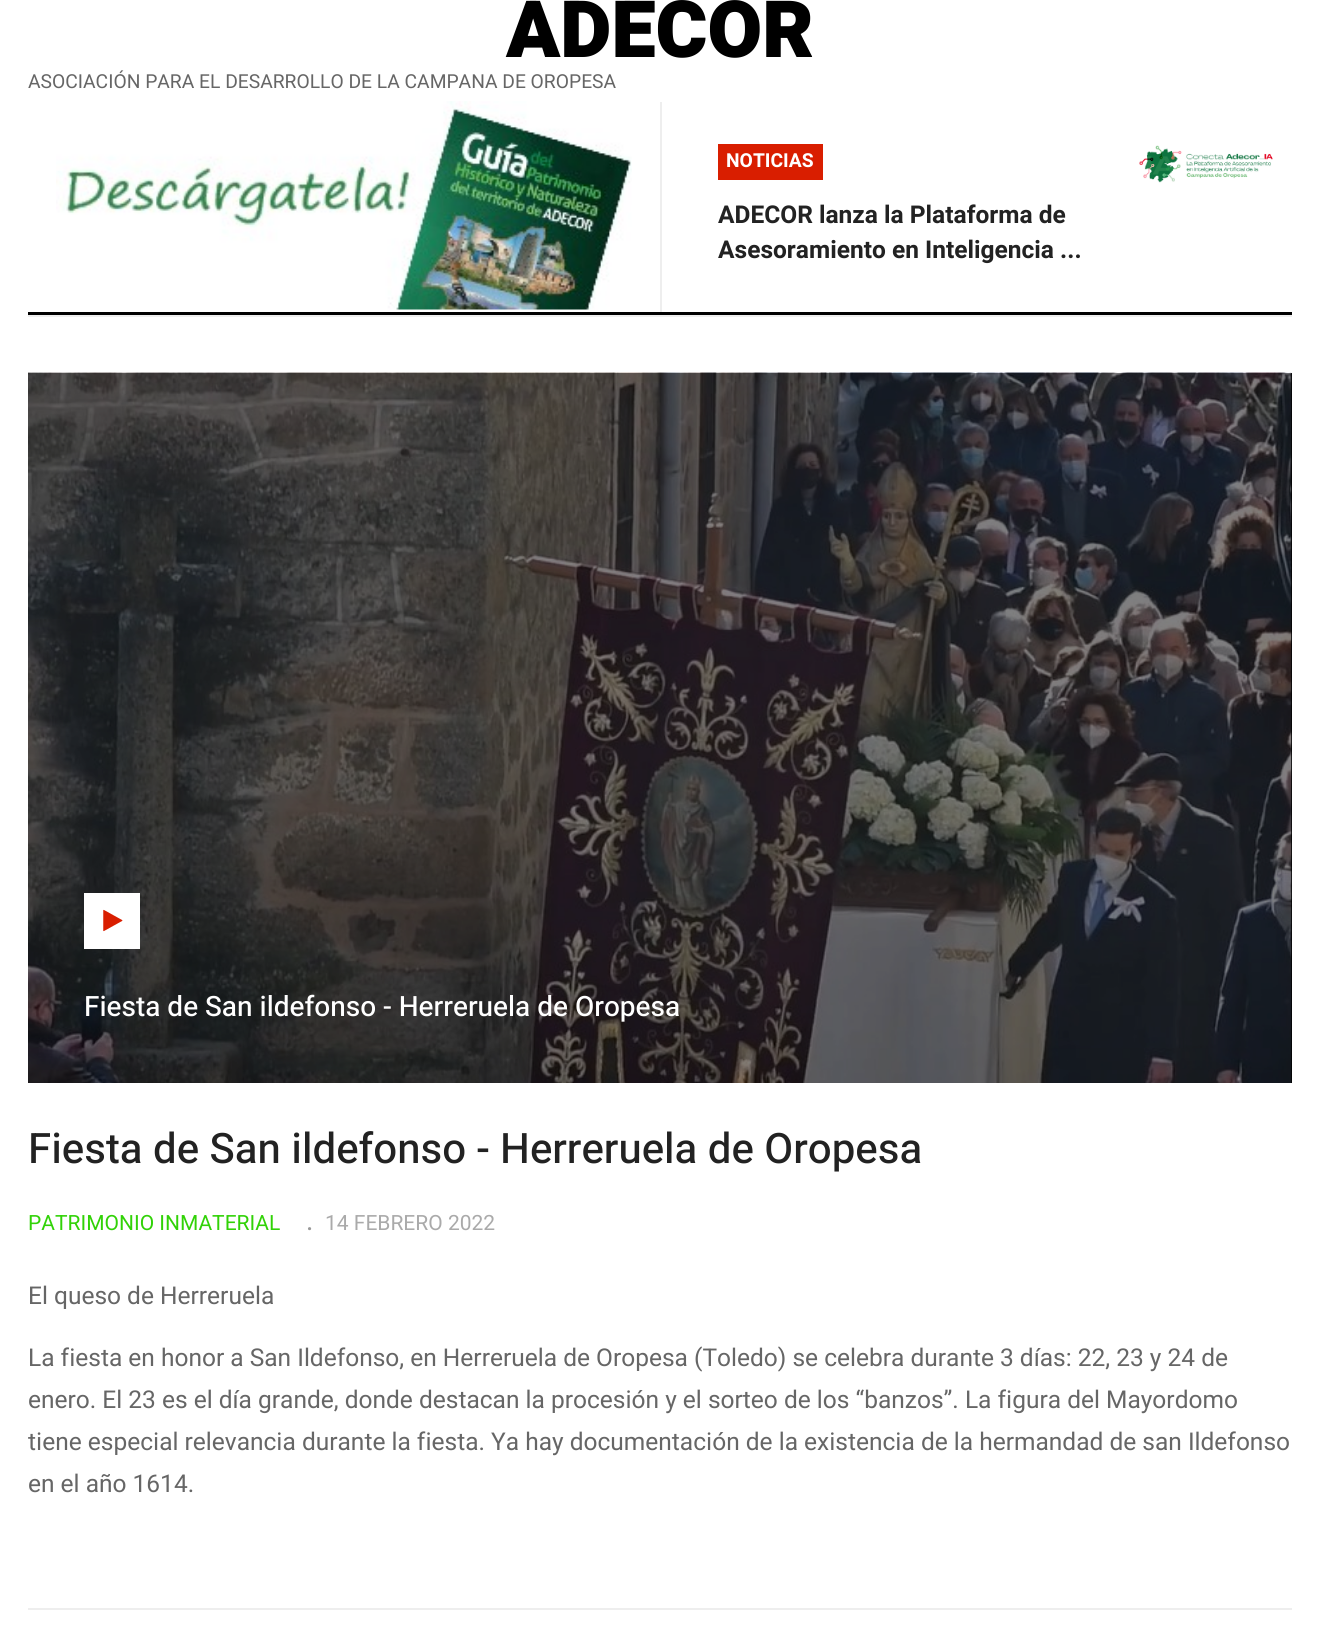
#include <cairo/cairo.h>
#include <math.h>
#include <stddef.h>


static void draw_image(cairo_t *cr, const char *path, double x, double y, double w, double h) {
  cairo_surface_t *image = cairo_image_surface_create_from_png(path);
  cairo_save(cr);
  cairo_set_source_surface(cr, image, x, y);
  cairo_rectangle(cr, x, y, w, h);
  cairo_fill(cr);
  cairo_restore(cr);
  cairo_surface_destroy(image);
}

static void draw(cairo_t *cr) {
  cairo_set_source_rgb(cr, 1, 1, 1);
  cairo_paint(cr);
  draw_image(cr, "images/1.png", 56, 101, 576, 209);
  cairo_set_source_rgb(cr, 238 / 255.0, 238 / 255.0, 238 / 255.0);
  cairo_rectangle(cr, 660, 102, 2, 210);
  cairo_fill(cr);
  cairo_set_source_rgb(cr, 217 / 255.0, 30 / 255.0, 0);
  cairo_rectangle(cr, 718, 144, 105, 36);
  cairo_fill(cr);
  draw_image(cr, "images/2.png", 1139, 145, 134, 38);
  cairo_set_source_rgb(cr, 0, 0, 0);
  cairo_rectangle(cr, 28, 312, 1264, 3);
  cairo_fill(cr);
  cairo_set_source_rgb(cr, 238 / 255.0, 238 / 255.0, 238 / 255.0);
  cairo_rectangle(cr, 28, 315, 1264, 2);
  cairo_fill(cr);
  cairo_set_source_rgb(cr, 0, 0, 0);
  cairo_rectangle(cr, 1291, 373, 1, 710);
  cairo_fill(cr);
  draw_image(cr, "images/3.png", 28, 372, 1264, 711);
  cairo_set_source_rgb(cr, 1, 1, 1);
  cairo_rectangle(cr, 84, 893, 56, 56);
  cairo_fill(cr);
  draw_image(cr, "images/4.png", 103, 909, 20, 23);
  cairo_set_source_rgb(cr, 238 / 255.0, 238 / 255.0, 238 / 255.0);
  cairo_rectangle(cr, 28, 1608, 1264, 2);
  cairo_fill(cr);
  cairo_select_font_face(cr, "Heebo Black", CAIRO_FONT_SLANT_NORMAL, CAIRO_FONT_WEIGHT_NORMAL);
  cairo_set_font_size(cr, 79);
  cairo_set_source_rgb(cr, 0, 0, 0);
  cairo_move_to(cr, 506, 57);
  cairo_show_text(cr, "ADECOR");
  cairo_select_font_face(cr, "Heebo", CAIRO_FONT_SLANT_NORMAL, CAIRO_FONT_WEIGHT_NORMAL);
  cairo_set_font_size(cr, 19.25);
  cairo_set_source_rgb(cr, 102 / 255.0, 102 / 255.0, 102 / 255.0);
  cairo_move_to(cr, 28, 88);
  cairo_show_text(cr, "ASOCIACIÓN PARA EL DESARROLLO DE LA CAMPANA DE OROPESA");
  cairo_select_font_face(cr, "Heebo", CAIRO_FONT_SLANT_NORMAL, CAIRO_FONT_WEIGHT_BOLD);
  cairo_set_source_rgb(cr, 1, 1, 1);
  cairo_move_to(cr, 726, 167);
  cairo_show_text(cr, "NOTICIAS");
  cairo_set_font_size(cr, 24.5);
  cairo_set_source_rgb(cr, 34 / 255.0, 34 / 255.0, 34 / 255.0);
  cairo_move_to(cr, 718, 223);
  cairo_show_text(cr, "ADECOR lanza la Plataforma de");
  cairo_move_to(cr, 718, 258);
  cairo_show_text(cr, "Asesoramiento en Inteligencia ...");
  cairo_select_font_face(cr, "Heebo Medium", CAIRO_FONT_SLANT_NORMAL, CAIRO_FONT_WEIGHT_NORMAL);
  cairo_set_font_size(cr, 28);
  cairo_set_source_rgb(cr, 1, 1, 1);
  cairo_move_to(cr, 84, 1016);
  cairo_show_text(cr, "Fiesta de San ildefonso - Herreruela de Oropesa");
  cairo_set_font_size(cr, 42);
  cairo_set_source_rgb(cr, 34 / 255.0, 34 / 255.0, 34 / 255.0);
  cairo_move_to(cr, 28, 1163);
  cairo_show_text(cr, "Fiesta de San ildefonso - Herreruela de Oropesa");
  cairo_select_font_face(cr, "Heebo", CAIRO_FONT_SLANT_NORMAL, CAIRO_FONT_WEIGHT_NORMAL);
  cairo_set_font_size(cr, 21);
  cairo_set_source_rgb(cr, 49 / 255.0, 210 / 255.0, 7 / 255.0);
  cairo_move_to(cr, 28, 1230);
  cairo_show_text(cr, "PATRIMONIO INMATERIAL");
  cairo_set_font_size(cr, 28);
  cairo_set_source_rgb(cr, 153 / 255.0, 153 / 255.0, 153 / 255.0);
  cairo_move_to(cr, 306, 1230);
  cairo_show_text(cr, ".");
  cairo_set_font_size(cr, 21);
  cairo_set_source_rgb(cr, 170 / 255.0, 170 / 255.0, 170 / 255.0);
  cairo_move_to(cr, 325, 1230);
  cairo_show_text(cr, "14 FEBRERO 2022");
  cairo_set_font_size(cr, 24.5);
  cairo_set_source_rgb(cr, 102 / 255.0, 102 / 255.0, 102 / 255.0);
  cairo_move_to(cr, 28, 1304);
  cairo_show_text(cr, "El queso de Herreruela");
  cairo_move_to(cr, 28, 1366);
  cairo_show_text(cr, "La fiesta en honor a San Ildefonso, en Herreruela de Oropesa (Toledo) se celebra durante 3 días: 22, 23 y 24 de");
  cairo_move_to(cr, 28, 1408);
  cairo_show_text(cr, "enero. El 23 es el día grande, donde destacan la procesión y el sorteo de los “banzos”. La figura del Mayordomo");
  cairo_move_to(cr, 28, 1450);
  cairo_show_text(cr, "tiene especial relevancia durante la fiesta. Ya hay documentación de la existencia de la hermandad de san Ildefonso");
  cairo_move_to(cr, 28, 1492);
  cairo_show_text(cr, "en el año 1614.");
}

int main(void) {
  cairo_surface_t *surface = cairo_image_surface_create(CAIRO_FORMAT_RGB24, 1319, 1637);
  cairo_t *cr = cairo_create(surface);
  cairo_font_options_t *options = cairo_font_options_create();
  cairo_font_options_set_hint_metrics(options, CAIRO_HINT_METRICS_OFF);
  cairo_font_options_set_hint_style(options, CAIRO_HINT_STYLE_NONE);
  cairo_set_font_options(cr, options);
  cairo_set_miter_limit(cr, 4);
  draw(cr);
  cairo_surface_write_to_png(surface, "out.png");
  cairo_font_options_destroy(options);
  cairo_destroy(cr);
  cairo_surface_destroy(surface);
  return 0;
}
